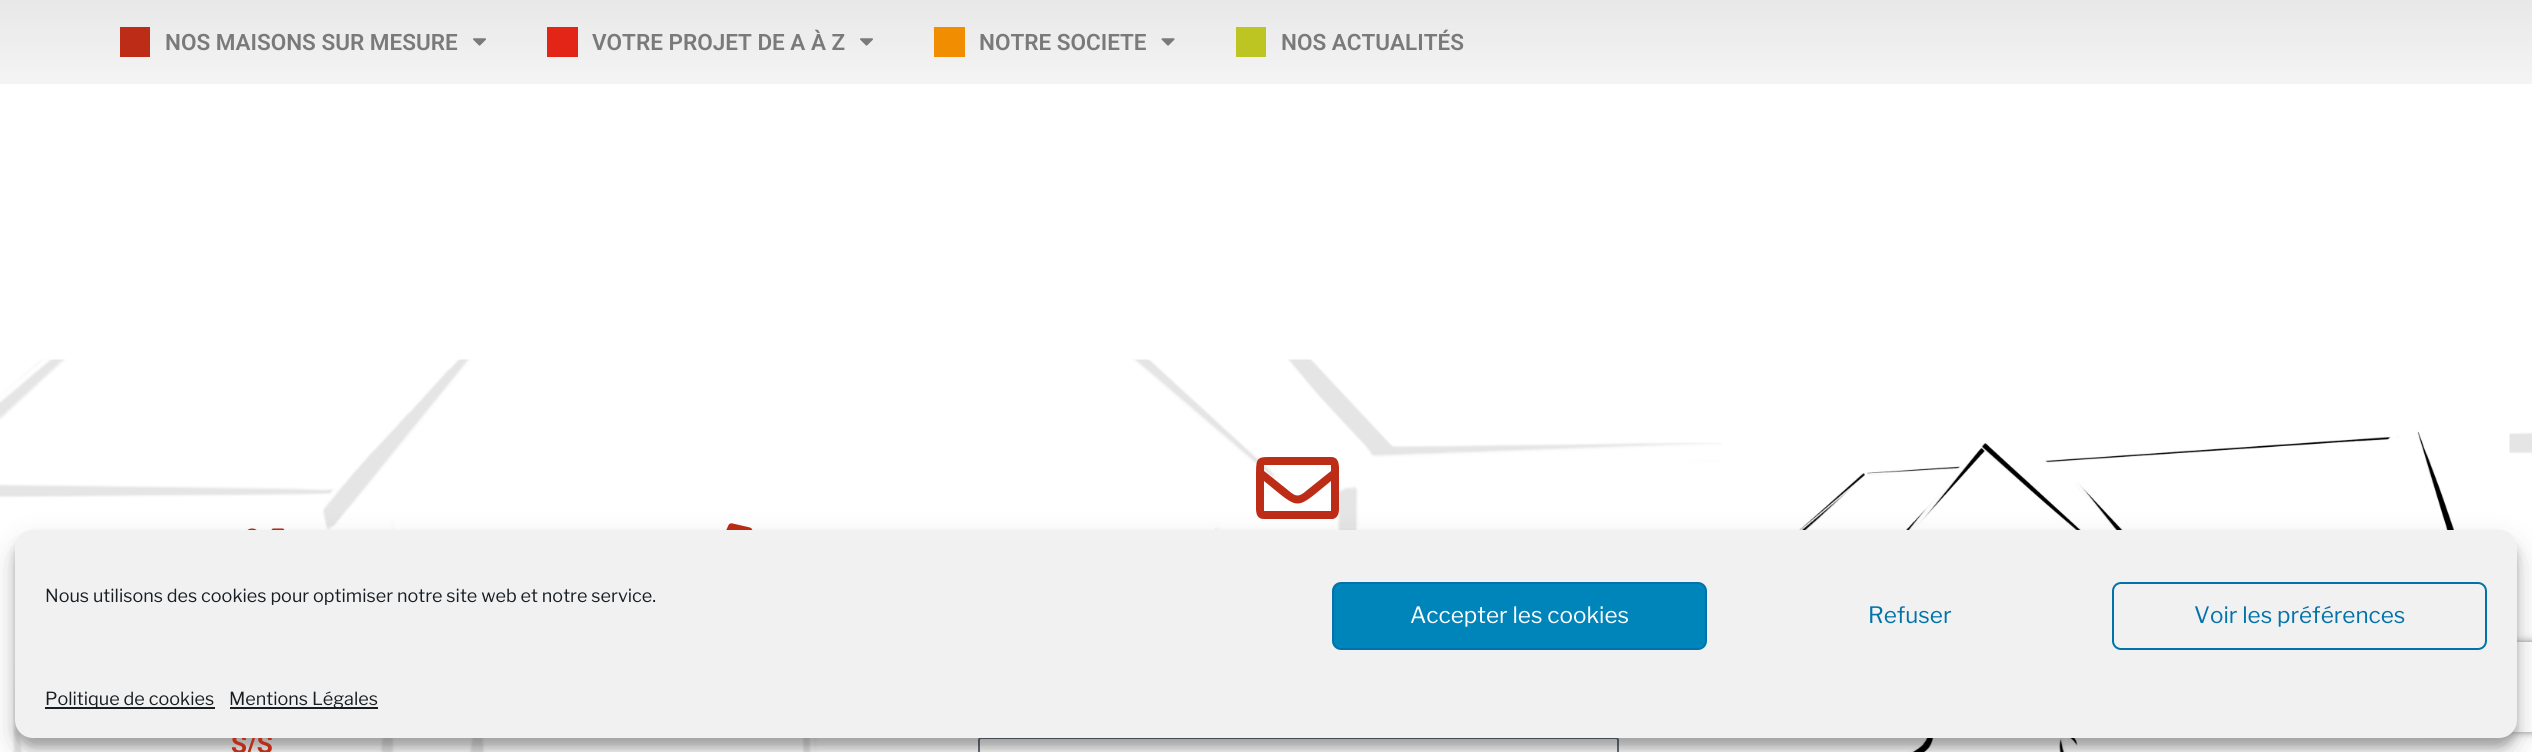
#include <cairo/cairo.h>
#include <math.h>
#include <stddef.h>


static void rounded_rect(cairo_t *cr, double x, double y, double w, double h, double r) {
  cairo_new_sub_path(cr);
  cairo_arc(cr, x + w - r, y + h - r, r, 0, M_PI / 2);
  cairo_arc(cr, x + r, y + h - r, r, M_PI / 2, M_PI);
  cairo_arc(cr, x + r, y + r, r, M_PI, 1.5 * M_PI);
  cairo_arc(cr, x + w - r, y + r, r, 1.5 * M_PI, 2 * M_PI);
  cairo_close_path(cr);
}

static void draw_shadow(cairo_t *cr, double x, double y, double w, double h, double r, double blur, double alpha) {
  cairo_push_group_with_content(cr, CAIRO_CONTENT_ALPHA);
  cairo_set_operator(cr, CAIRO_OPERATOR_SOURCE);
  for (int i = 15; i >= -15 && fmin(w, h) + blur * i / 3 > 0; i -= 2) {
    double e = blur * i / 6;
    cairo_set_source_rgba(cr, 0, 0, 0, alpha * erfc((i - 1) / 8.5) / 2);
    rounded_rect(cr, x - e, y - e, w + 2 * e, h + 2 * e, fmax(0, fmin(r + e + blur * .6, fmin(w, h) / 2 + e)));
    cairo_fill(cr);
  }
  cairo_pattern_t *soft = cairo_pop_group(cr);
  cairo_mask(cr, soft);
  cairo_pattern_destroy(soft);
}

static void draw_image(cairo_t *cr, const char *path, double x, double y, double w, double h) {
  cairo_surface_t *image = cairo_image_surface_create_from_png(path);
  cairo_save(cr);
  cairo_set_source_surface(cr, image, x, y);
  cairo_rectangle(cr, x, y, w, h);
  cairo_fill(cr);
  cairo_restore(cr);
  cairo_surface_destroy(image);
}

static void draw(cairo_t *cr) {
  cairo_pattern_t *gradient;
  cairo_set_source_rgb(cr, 1, 1, 1);
  cairo_paint(cr);
  gradient = cairo_pattern_create_linear(1266, 0, 1266, 84);
  cairo_pattern_add_color_stop_rgba(gradient, 0, 232 / 255.0, 232 / 255.0, 232 / 255.0, 1);
  cairo_pattern_add_color_stop_rgba(gradient, 1, 244 / 255.0, 244 / 255.0, 244 / 255.0, 1);
  cairo_set_source(cr, gradient);
  cairo_pattern_destroy(gradient);
  cairo_rectangle(cr, 0, 0, 2532, 84);
  cairo_fill(cr);
  cairo_set_source_rgb(cr, 188 / 255.0, 44 / 255.0, 22 / 255.0);
  cairo_rectangle(cr, 120, 27, 30, 30);
  cairo_fill(cr);
  draw_image(cr, "images/1.png", 473, 38, 13, 8);
  cairo_set_source_rgb(cr, 227 / 255.0, 37 / 255.0, 24 / 255.0);
  cairo_rectangle(cr, 547, 27, 31, 30);
  cairo_fill(cr);
  draw_image(cr, "images/1.png", 860, 38, 13, 8);
  cairo_set_source_rgb(cr, 240 / 255.0, 141 / 255.0, 0);
  cairo_rectangle(cr, 934, 27, 31, 30);
  cairo_fill(cr);
  draw_image(cr, "images/2.png", 1161, 38, 14, 8);
  cairo_set_source_rgb(cr, 188 / 255.0, 197 / 255.0, 33 / 255.0);
  cairo_rectangle(cr, 1236, 27, 30, 30);
  cairo_fill(cr);
  draw_image(cr, "images/3.png", 0, 359, 2532, 393);
  draw_image(cr, "images/4.png", 1722, 431, 788, 321);
  draw_image(cr, "images/5.png", 726, 523, 27, 7);
  draw_image(cr, "images/6.png", 247, 528, 38, 2);
  cairo_set_source_rgb(cr, 1, 1, 1);
  rounded_rect(cr, 979, 738, 639, 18, 2);
  cairo_fill_preserve(cr);
  cairo_set_source_rgb(cr, 105 / 255.0, 114 / 255.0, 125 / 255.0);
  cairo_stroke(cr);
  cairo_set_source_rgb(cr, 0, 0, 0);
  draw_shadow(cr, 15, 539, 2502, 208, 18, 4.5, 0.23);
  cairo_set_source_rgb(cr, 189 / 255.0, 44 / 255.0, 22 / 255.0);
  cairo_new_path(cr);
  cairo_move_to(cr, 1331, 457);
  cairo_curve_to(cr, 1340, 457, 1339, 467, 1339, 473);
  cairo_line_to(cr, 1339, 504);
  cairo_curve_to(cr, 1339, 509, 1340, 517, 1333, 519);
  cairo_line_to(cr, 1264, 519);
  cairo_curve_to(cr, 1255, 519, 1256, 510, 1256, 504);
  cairo_line_to(cr, 1256, 473);
  cairo_curve_to(cr, 1256, 456, 1258, 457, 1275, 457);
  cairo_close_path(cr);
  cairo_move_to(cr, 1331, 465);
  cairo_line_to(cr, 1264, 465);
  cairo_line_to(cr, 1264, 471);
  cairo_line_to(cr, 1289, 491);
  cairo_curve_to(cr, 1296, 497, 1299, 497, 1306, 491);
  cairo_line_to(cr, 1331, 471);
  cairo_close_path(cr);
  cairo_move_to(cr, 1264, 511);
  cairo_line_to(cr, 1331, 511);
  cairo_line_to(cr, 1331, 481);
  cairo_curve_to(cr, 1294, 511, 1301, 511, 1264, 481);
  cairo_close_path(cr);
  cairo_fill(cr);
  cairo_set_source_rgb(cr, 0, 0, 0);
  draw_shadow(cr, 15, 545, 2502, 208, 18, 15, 0.19);
  cairo_save(cr);
  cairo_set_fill_rule(cr, CAIRO_FILL_RULE_EVEN_ODD);
  cairo_new_path(cr);
  cairo_move_to(cr, 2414, 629);
  cairo_line_to(cr, 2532, 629);
  cairo_line_to(cr, 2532, 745);
  cairo_line_to(cr, 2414, 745);
  cairo_close_path(cr);
  cairo_move_to(cr, 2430, 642);
  cairo_line_to(cr, 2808, 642);
  cairo_curve_to(cr, 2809.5, 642, 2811, 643.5, 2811, 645);
  cairo_line_to(cr, 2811, 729);
  cairo_curve_to(cr, 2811, 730.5, 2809.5, 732, 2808, 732);
  cairo_line_to(cr, 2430, 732);
  cairo_curve_to(cr, 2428.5, 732, 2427, 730.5, 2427, 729);
  cairo_line_to(cr, 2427, 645);
  cairo_curve_to(cr, 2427, 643.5, 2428.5, 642, 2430, 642);
  cairo_close_path(cr);
  cairo_clip(cr);
  cairo_set_source_rgb(cr, 128 / 255.0, 128 / 255.0, 128 / 255.0);
  draw_shadow(cr, 2427, 642, 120, 90, 3, 4, 1);
  cairo_restore(cr);
  cairo_select_font_face(cr, "Roboto SemiBold", CAIRO_FONT_SLANT_NORMAL, CAIRO_FONT_WEIGHT_NORMAL);
  cairo_set_font_size(cr, 22.5);
  cairo_set_source_rgb(cr, 122 / 255.0, 122 / 255.0, 122 / 255.0);
  cairo_move_to(cr, 165, 50);
  cairo_show_text(cr, "NOS MAISONS SUR MESURE");
  cairo_move_to(cr, 592, 50);
  cairo_show_text(cr, "VOTRE PROJET DE A À Z");
  cairo_move_to(cr, 979, 50);
  cairo_show_text(cr, "NOTRE SOCIETE");
  cairo_move_to(cr, 1281, 50);
  cairo_show_text(cr, "NOS ACTUALITÉS");
  cairo_select_font_face(cr, "Roboto", CAIRO_FONT_SLANT_NORMAL, CAIRO_FONT_WEIGHT_BOLD);
  cairo_set_font_size(cr, 26);
  cairo_set_source_rgb(cr, 189 / 255.0, 44 / 255.0, 22 / 255.0);
  cairo_move_to(cr, 231, 753);
  cairo_show_text(cr, "S/S");
  cairo_set_source_rgb(cr, 241 / 255.0, 241 / 255.0, 241 / 255.0);
  rounded_rect(cr, 15, 530, 2502, 208, 18);
  cairo_fill(cr);
  cairo_select_font_face(cr, "Libre Franklin Thin", CAIRO_FONT_SLANT_NORMAL, CAIRO_FONT_WEIGHT_NORMAL);
  cairo_set_font_size(cr, 18);
  cairo_set_source_rgb(cr, 25 / 255.0, 30 / 255.0, 35 / 255.0);
  cairo_move_to(cr, 45, 602);
  cairo_show_text(cr, "Nous utilisons des cookies pour optimiser notre site web et notre service.");
  cairo_rectangle(cr, 230, 707, 148, 2);
  cairo_fill(cr);
  cairo_move_to(cr, 229, 705);
  cairo_show_text(cr, "Mentions Légales");
  cairo_rectangle(cr, 45, 707, 170, 2);
  cairo_fill(cr);
  cairo_move_to(cr, 45, 705);
  cairo_show_text(cr, "Politique de cookies");
  rounded_rect(cr, 2113, 583, 373, 66, 8);
  cairo_set_source_rgb(cr, 0, 115 / 255.0, 170 / 255.0);
  cairo_stroke(cr);
  cairo_set_font_size(cr, 22.5);
  cairo_move_to(cr, 2194, 623);
  cairo_show_text(cr, "Voir les préférences");
  cairo_move_to(cr, 1868, 623);
  cairo_show_text(cr, "Refuser");
  cairo_set_source_rgb(cr, 0, 133 / 255.0, 186 / 255.0);
  rounded_rect(cr, 1333, 583, 373, 66, 8);
  cairo_fill_preserve(cr);
  cairo_set_source_rgb(cr, 0, 115 / 255.0, 170 / 255.0);
  cairo_stroke(cr);
  cairo_set_source_rgb(cr, 1, 1, 1);
  cairo_move_to(cr, 1410, 623);
  cairo_show_text(cr, "Accepter les cookies");
}

int main(void) {
  cairo_surface_t *surface = cairo_image_surface_create(CAIRO_FORMAT_RGB24, 2532, 752);
  cairo_t *cr = cairo_create(surface);
  cairo_font_options_t *options = cairo_font_options_create();
  cairo_font_options_set_hint_metrics(options, CAIRO_HINT_METRICS_OFF);
  cairo_font_options_set_hint_style(options, CAIRO_HINT_STYLE_NONE);
  cairo_set_font_options(cr, options);
  cairo_set_miter_limit(cr, 4);
  draw(cr);
  cairo_surface_write_to_png(surface, "out.png");
  cairo_font_options_destroy(options);
  cairo_destroy(cr);
  cairo_surface_destroy(surface);
  return 0;
}
